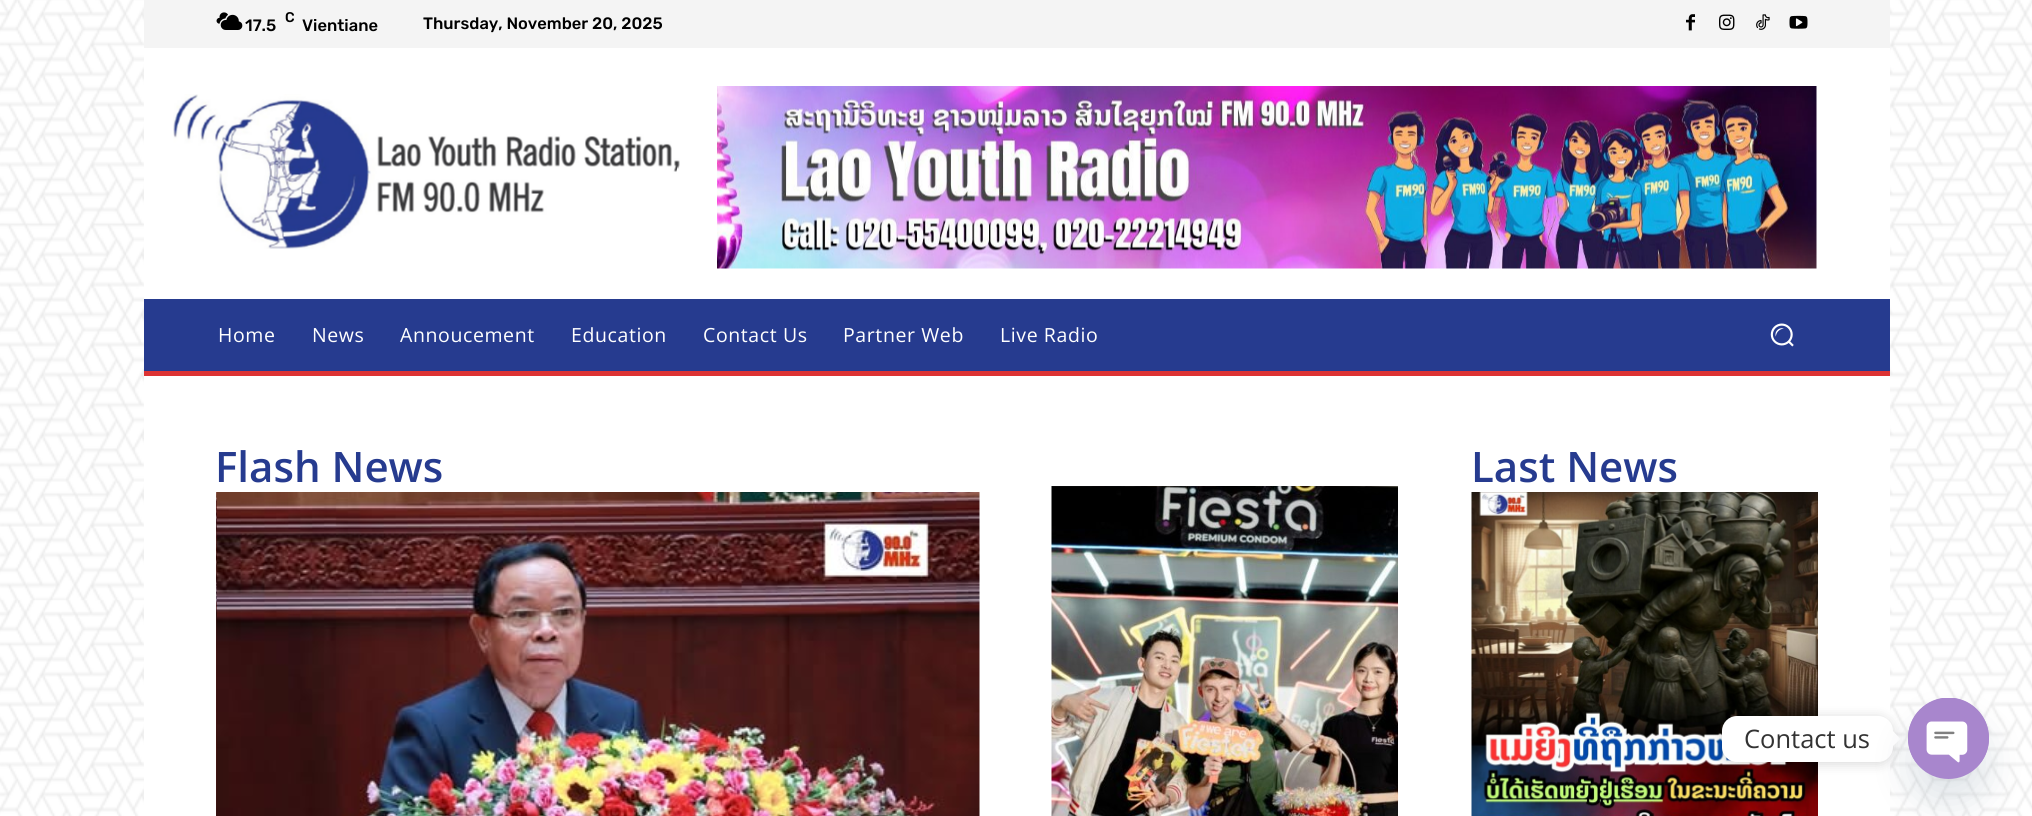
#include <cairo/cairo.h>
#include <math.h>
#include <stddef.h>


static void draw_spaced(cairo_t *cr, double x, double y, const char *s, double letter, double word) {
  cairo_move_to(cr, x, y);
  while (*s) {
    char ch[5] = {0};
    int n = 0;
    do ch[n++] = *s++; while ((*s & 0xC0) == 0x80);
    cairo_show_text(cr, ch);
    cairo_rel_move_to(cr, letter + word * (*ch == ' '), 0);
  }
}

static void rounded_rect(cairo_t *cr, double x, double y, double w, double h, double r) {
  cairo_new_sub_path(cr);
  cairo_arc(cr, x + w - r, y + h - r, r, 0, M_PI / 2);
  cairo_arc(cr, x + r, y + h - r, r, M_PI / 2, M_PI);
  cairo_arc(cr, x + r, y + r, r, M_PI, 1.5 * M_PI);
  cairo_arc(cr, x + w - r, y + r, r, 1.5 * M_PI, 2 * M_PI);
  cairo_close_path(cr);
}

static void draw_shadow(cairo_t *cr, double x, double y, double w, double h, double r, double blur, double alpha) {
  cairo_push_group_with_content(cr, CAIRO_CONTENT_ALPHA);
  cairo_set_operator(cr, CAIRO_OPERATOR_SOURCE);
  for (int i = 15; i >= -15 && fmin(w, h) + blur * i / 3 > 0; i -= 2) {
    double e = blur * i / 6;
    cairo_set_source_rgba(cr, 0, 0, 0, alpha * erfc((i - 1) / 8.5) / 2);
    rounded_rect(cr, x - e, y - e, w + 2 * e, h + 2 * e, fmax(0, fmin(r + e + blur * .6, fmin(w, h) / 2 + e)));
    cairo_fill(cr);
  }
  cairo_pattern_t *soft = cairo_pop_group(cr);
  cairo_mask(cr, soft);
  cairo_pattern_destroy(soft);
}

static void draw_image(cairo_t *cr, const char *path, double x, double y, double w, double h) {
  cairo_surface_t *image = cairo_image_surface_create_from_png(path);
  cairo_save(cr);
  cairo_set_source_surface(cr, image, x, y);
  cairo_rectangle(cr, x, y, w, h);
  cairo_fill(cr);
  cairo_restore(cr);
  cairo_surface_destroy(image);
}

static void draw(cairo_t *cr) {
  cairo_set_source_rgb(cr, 1, 1, 1);
  cairo_paint(cr);
  draw_image(cr, "images/1.png", 0, 0, 2032, 816);
  cairo_set_source_rgb(cr, 244 / 255.0, 244 / 255.0, 244 / 255.0);
  cairo_rectangle(cr, 144, 0, 1746, 48);
  cairo_fill(cr);
  draw_image(cr, "images/2.png", 216, 12, 27, 18);
  draw_image(cr, "images/3.png", 1686, 14, 9, 17);
  draw_image(cr, "images/4.png", 1719, 14, 16, 16);
  draw_image(cr, "images/5.png", 1756, 14, 14, 16);
  draw_image(cr, "images/6.png", 1789, 15, 19, 14);
  cairo_set_source_rgb(cr, 1, 1, 1);
  cairo_rectangle(cr, 144, 48, 1746, 768);
  cairo_fill(cr);
  draw_image(cr, "images/7.png", 173, 94, 507, 155);
  draw_image(cr, "images/8.png", 717, 86, 1100, 183);
  cairo_set_source_rgb(cr, 38 / 255.0, 59 / 255.0, 143 / 255.0);
  cairo_rectangle(cr, 144, 299, 1746, 72);
  cairo_fill(cr);
  draw_image(cr, "images/9.png", 1770, 323, 24, 24);
  cairo_set_source_rgb(cr, 221 / 255.0, 51 / 255.0, 51 / 255.0);
  cairo_rectangle(cr, 144, 371, 1746, 5);
  cairo_fill(cr);
  draw_image(cr, "images/10.png", 216, 492, 764, 324);
  draw_image(cr, "images/11.png", 1051, 486, 347, 330);
  draw_image(cr, "images/12.png", 1471, 492, 347, 324);
  cairo_set_source_rgb(cr, 0, 0, 0);
  draw_shadow(cr, 1722, 717, 171, 47, 15, 6, 0.15);
  cairo_set_source_rgb(cr, 1, 1, 1);
  rounded_rect(cr, 1722, 716, 171, 46, 15);
  cairo_fill(cr);
  cairo_new_path(cr);
  cairo_move_to(cr, 1893, 746);
  cairo_line_to(cr, 1893, 731);
  cairo_line_to(cr, 1900.5, 739);
  cairo_close_path(cr);
  cairo_fill(cr);
  cairo_set_source_rgb(cr, 73 / 255.0, 104 / 255.0, 126 / 255.0);
  draw_shadow(cr, 1908, 722, 81, 81, 40.5, 18, 0.16);
  cairo_set_source_rgb(cr, 168 / 255.0, 134 / 255.0, 205 / 255.0);
  cairo_arc(cr, 1948.5, 738.5, 40.5, 0, 2 * M_PI);
  cairo_fill(cr);
  draw_image(cr, "images/13.png", 1908, 698, 81, 65);
  cairo_select_font_face(cr, "Rubik Medium", CAIRO_FONT_SLANT_NORMAL, CAIRO_FONT_WEIGHT_NORMAL);
  cairo_set_font_size(cr, 14);
  cairo_set_source_rgb(cr, 0, 0, 0);
  cairo_move_to(cr, 285, 22);
  cairo_show_text(cr, "C");
  cairo_set_font_size(cr, 16.5);
  cairo_move_to(cr, 245, 31);
  cairo_show_text(cr, "17.5");
  cairo_move_to(cr, 302, 31);
  cairo_show_text(cr, "Vientiane");
  cairo_move_to(cr, 423, 29);
  cairo_show_text(cr, "Thursday, November 20, 2025");
  cairo_select_font_face(cr, "Open Sans", CAIRO_FONT_SLANT_NORMAL, CAIRO_FONT_WEIGHT_NORMAL);
  cairo_set_font_size(cr, 19.5);
  cairo_set_source_rgb(cr, 1, 1, 1);
  draw_spaced(cr, 218, 342, "Home", 0.6, 0);
  draw_spaced(cr, 312, 342, "News", 0.6, 0);
  draw_spaced(cr, 400, 342, "Annoucement", 0.6, 0);
  draw_spaced(cr, 571, 342, "Education", 0.6, 0);
  draw_spaced(cr, 703, 342, "Contact Us", 0.6, 0);
  draw_spaced(cr, 843, 342, "Partner Web", 0.6, 0);
  draw_spaced(cr, 1000, 342, "Live Radio", 0.6, 0);
  cairo_select_font_face(cr, "Open Sans SemiBold", CAIRO_FONT_SLANT_NORMAL, CAIRO_FONT_WEIGHT_NORMAL);
  cairo_set_font_size(cr, 42);
  cairo_set_source_rgb(cr, 38 / 255.0, 59 / 255.0, 143 / 255.0);
  cairo_move_to(cr, 215, 482);
  cairo_show_text(cr, "Flash News");
  cairo_move_to(cr, 1471, 482);
  cairo_show_text(cr, "Last News");
  cairo_select_font_face(cr, "Open Sans", CAIRO_FONT_SLANT_NORMAL, CAIRO_FONT_WEIGHT_NORMAL);
  cairo_set_font_size(cr, 25.5);
  cairo_set_source_rgb(cr, 51 / 255.0, 51 / 255.0, 51 / 255.0);
  cairo_move_to(cr, 1744, 748);
  cairo_show_text(cr, "Contact us");
}

int main(void) {
  cairo_surface_t *surface = cairo_image_surface_create(CAIRO_FORMAT_RGB24, 2032, 816);
  cairo_t *cr = cairo_create(surface);
  cairo_font_options_t *options = cairo_font_options_create();
  cairo_font_options_set_hint_metrics(options, CAIRO_HINT_METRICS_OFF);
  cairo_font_options_set_hint_style(options, CAIRO_HINT_STYLE_NONE);
  cairo_set_font_options(cr, options);
  cairo_set_miter_limit(cr, 4);
  draw(cr);
  cairo_surface_write_to_png(surface, "out.png");
  cairo_font_options_destroy(options);
  cairo_destroy(cr);
  cairo_surface_destroy(surface);
  return 0;
}
